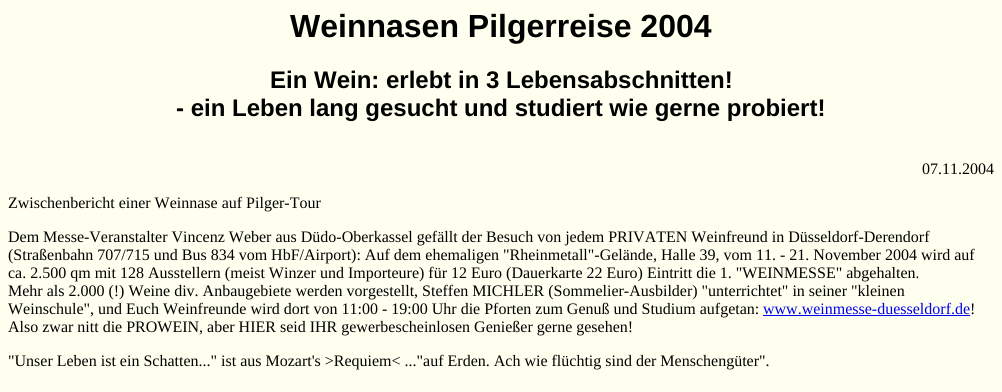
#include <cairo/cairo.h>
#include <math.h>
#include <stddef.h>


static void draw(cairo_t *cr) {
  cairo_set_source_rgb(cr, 1, 1, 240 / 255.0);
  cairo_paint(cr);
  cairo_set_source_rgb(cr, 0, 0, 238 / 255.0);
  cairo_rectangle(cr, 763, 315, 207, 1);
  cairo_fill(cr);
  cairo_select_font_face(cr, "Liberation Sans", CAIRO_FONT_SLANT_NORMAL, CAIRO_FONT_WEIGHT_BOLD);
  cairo_set_font_size(cr, 32);
  cairo_set_source_rgb(cr, 0, 0, 0);
  cairo_move_to(cr, 290, 37);
  cairo_show_text(cr, "Weinnasen Pilgerreise 2004");
  cairo_set_font_size(cr, 24);
  cairo_move_to(cr, 270, 88);
  cairo_show_text(cr, "Ein Wein: erlebt in 3 Lebensabschnitten!");
  cairo_move_to(cr, 176, 116);
  cairo_show_text(cr, "- ein Leben lang gesucht und studiert wie gerne probiert!");
  cairo_select_font_face(cr, "Liberation Serif", CAIRO_FONT_SLANT_NORMAL, CAIRO_FONT_WEIGHT_NORMAL);
  cairo_set_font_size(cr, 16);
  cairo_move_to(cr, 922, 174);
  cairo_show_text(cr, "07.11.2004");
  cairo_move_to(cr, 8, 208);
  cairo_show_text(cr, "Zwischenbericht einer Weinnase auf Pilger-Tour");
  cairo_move_to(cr, 8, 242);
  cairo_show_text(cr, "Dem Messe-Veranstalter Vincenz Weber aus Düdo-Oberkassel gefällt der Besuch von jedem PRIVATEN Weinfreund in Düsseldorf-Derendorf");
  cairo_move_to(cr, 8, 260);
  cairo_show_text(cr, "(Straßenbahn 707/715 und Bus 834 vom HbF/Airport): Auf dem ehemaligen \"Rheinmetall\"-Gelände, Halle 39, vom 11. - 21. November 2004 wird auf");
  cairo_move_to(cr, 8, 278);
  cairo_show_text(cr, "ca. 2.500 qm mit 128 Ausstellern (meist Winzer und Importeure) für 12 Euro (Dauerkarte 22 Euro) Eintritt die 1. \"WEINMESSE\" abgehalten.");
  cairo_move_to(cr, 8, 296);
  cairo_show_text(cr, "Mehr als 2.000 (!) Weine div. Anbaugebiete werden vorgestellt, Steffen MICHLER (Sommelier-Ausbilder) \"unterrichtet\" in seiner \"kleinen");
  cairo_move_to(cr, 8, 314);
  cairo_show_text(cr, "Weinschule\", und Euch Weinfreunde wird dort von 11:00 - 19:00 Uhr die Pforten zum Genuß und Studium aufgetan:");
  cairo_set_source_rgb(cr, 0, 0, 238 / 255.0);
  cairo_move_to(cr, 763, 314);
  cairo_show_text(cr, "www.weinmesse-duesseldorf.de");
  cairo_set_source_rgb(cr, 0, 0, 0);
  cairo_move_to(cr, 970, 314);
  cairo_show_text(cr, "!");
  cairo_move_to(cr, 8, 332);
  cairo_show_text(cr, "Also zwar nitt die PROWEIN, aber HIER seid IHR gewerbescheinlosen Genießer gerne gesehen!");
  cairo_move_to(cr, 8, 366);
  cairo_show_text(cr, "\"Unser Leben ist ein Schatten...\" ist aus Mozart's >Requiem< ...\"auf Erden. Ach wie flüchtig sind der Menschengüter\".");
}

int main(void) {
  cairo_surface_t *surface = cairo_image_surface_create(CAIRO_FORMAT_RGB24, 1002, 392);
  cairo_t *cr = cairo_create(surface);
  cairo_font_options_t *options = cairo_font_options_create();
  cairo_font_options_set_hint_metrics(options, CAIRO_HINT_METRICS_OFF);
  cairo_font_options_set_hint_style(options, CAIRO_HINT_STYLE_NONE);
  cairo_set_font_options(cr, options);
  cairo_set_miter_limit(cr, 4);
  draw(cr);
  cairo_surface_write_to_png(surface, "out.png");
  cairo_font_options_destroy(options);
  cairo_destroy(cr);
  cairo_surface_destroy(surface);
  return 0;
}
